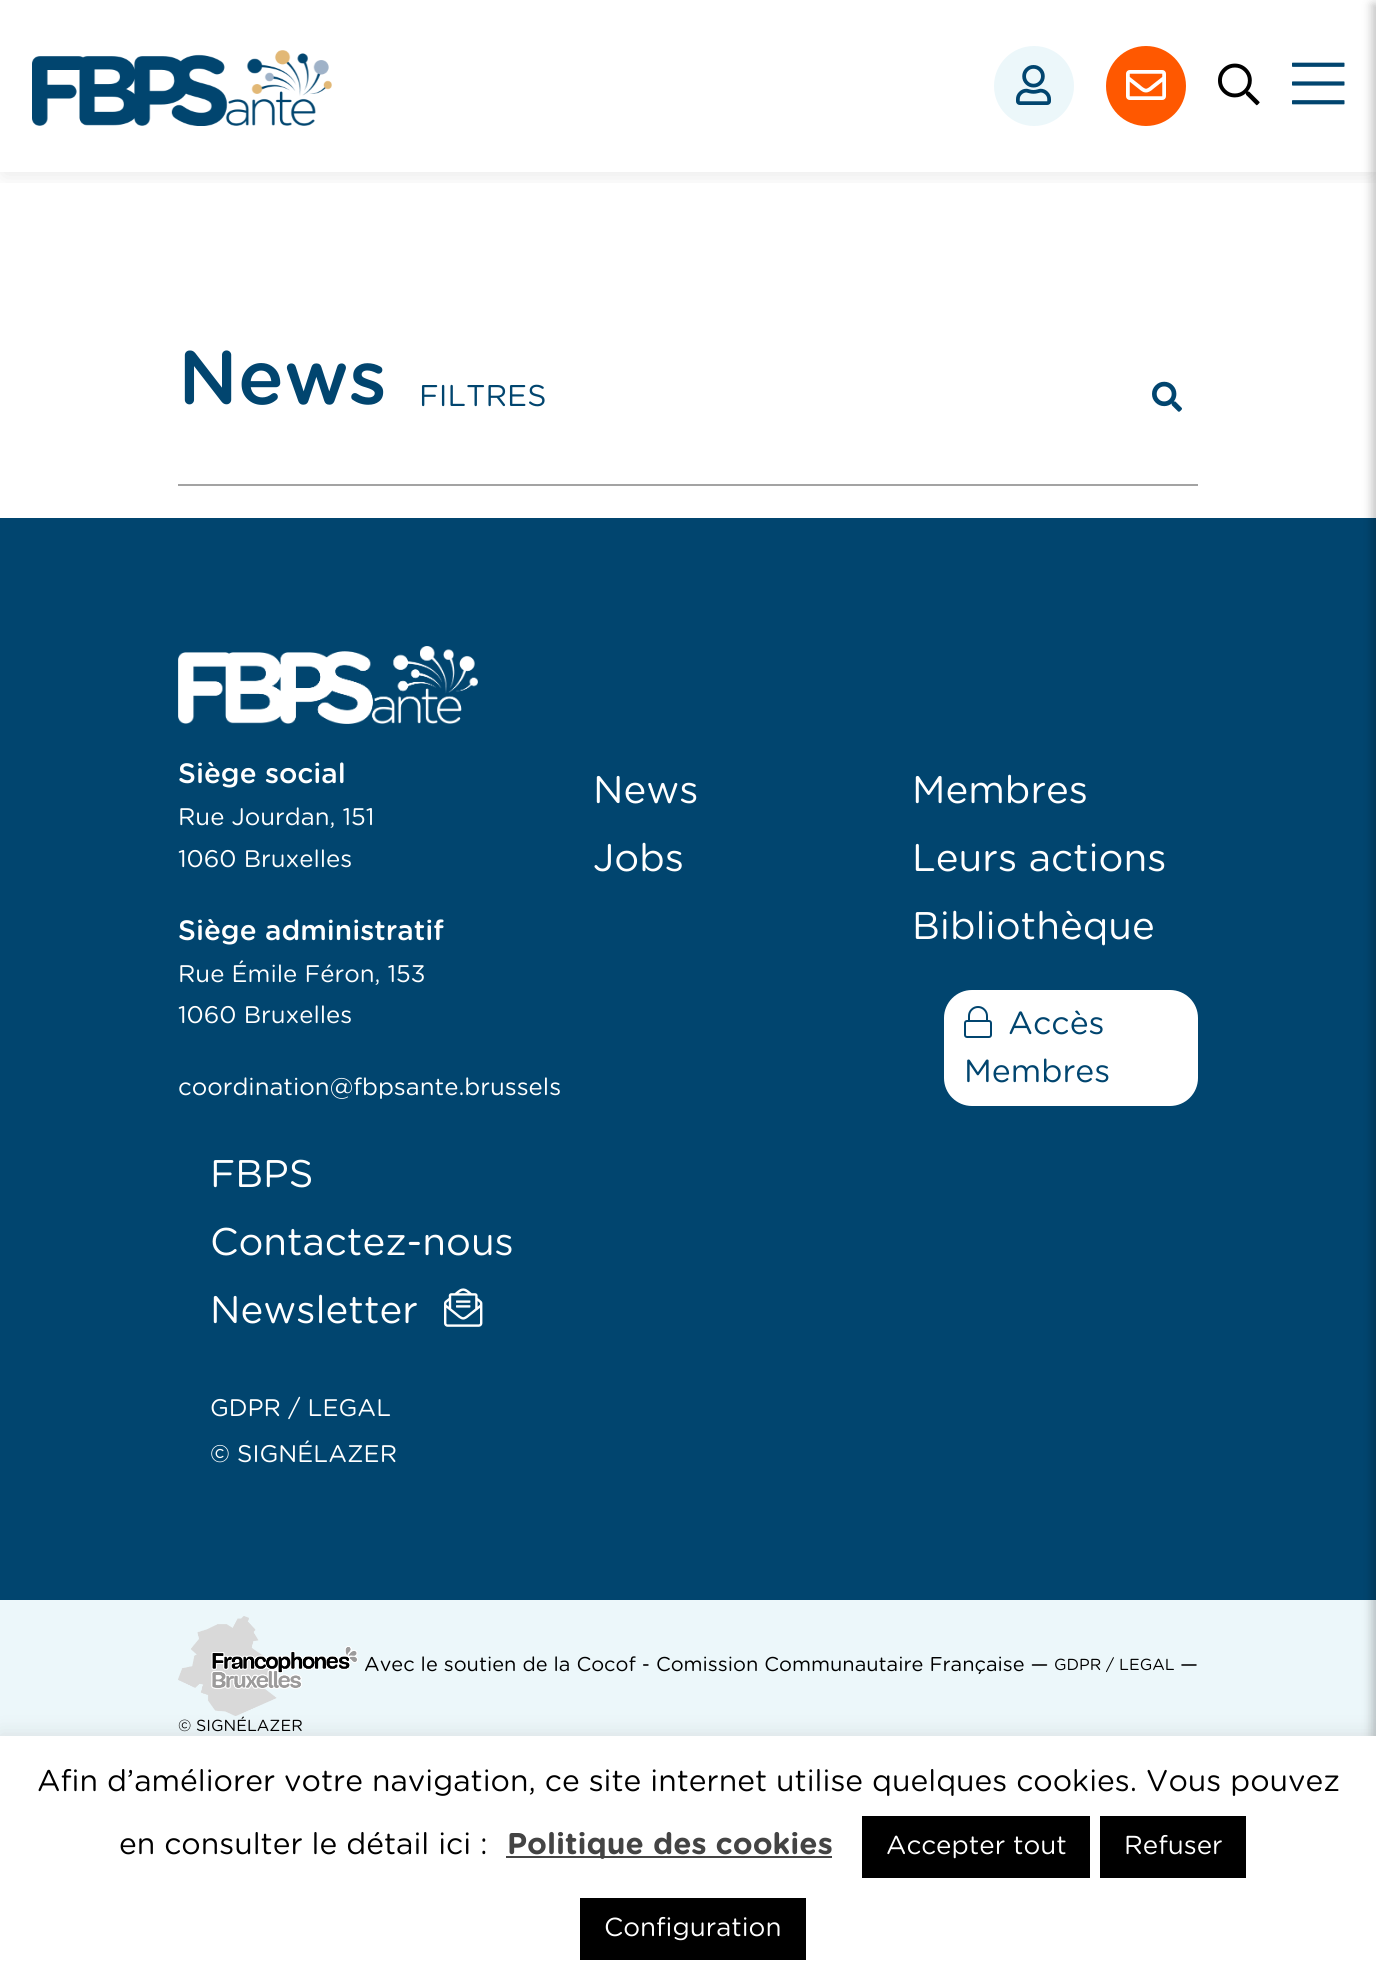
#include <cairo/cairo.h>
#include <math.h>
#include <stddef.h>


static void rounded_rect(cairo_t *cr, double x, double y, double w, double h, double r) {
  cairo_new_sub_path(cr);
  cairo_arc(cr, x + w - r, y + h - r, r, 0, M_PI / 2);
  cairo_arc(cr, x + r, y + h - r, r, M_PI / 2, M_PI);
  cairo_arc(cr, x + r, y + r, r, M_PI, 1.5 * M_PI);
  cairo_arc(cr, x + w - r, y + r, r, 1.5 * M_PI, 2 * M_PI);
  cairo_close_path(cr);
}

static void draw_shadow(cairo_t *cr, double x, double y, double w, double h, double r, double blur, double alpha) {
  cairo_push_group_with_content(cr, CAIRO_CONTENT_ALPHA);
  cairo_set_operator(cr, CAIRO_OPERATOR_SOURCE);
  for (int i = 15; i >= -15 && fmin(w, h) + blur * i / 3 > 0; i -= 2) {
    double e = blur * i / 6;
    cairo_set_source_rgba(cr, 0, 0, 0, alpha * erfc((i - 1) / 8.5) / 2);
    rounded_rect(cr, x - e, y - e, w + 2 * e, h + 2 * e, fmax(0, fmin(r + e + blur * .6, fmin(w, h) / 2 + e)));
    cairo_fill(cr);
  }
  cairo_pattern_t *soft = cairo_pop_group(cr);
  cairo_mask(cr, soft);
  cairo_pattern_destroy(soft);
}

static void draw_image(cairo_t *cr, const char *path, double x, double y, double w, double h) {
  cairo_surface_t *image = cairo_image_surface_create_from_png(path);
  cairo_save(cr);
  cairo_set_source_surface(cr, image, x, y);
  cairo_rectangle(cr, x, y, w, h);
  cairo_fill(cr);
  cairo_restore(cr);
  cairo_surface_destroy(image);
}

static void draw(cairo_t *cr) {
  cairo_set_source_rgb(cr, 1, 1, 1);
  cairo_paint(cr);
  cairo_save(cr);
  cairo_rectangle(cr, 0, 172, 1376, 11);
  cairo_clip(cr);
  cairo_set_source_rgb(cr, 0, 0, 0);
  draw_shadow(cr, 4, 10, 1368, 164, 0, 11, 0.1);
  cairo_restore(cr);
  draw_image(cr, "images/1.png", 32, 50, 300, 76);
  cairo_set_source_rgb(cr, 236 / 255.0, 247 / 255.0, 250 / 255.0);
  cairo_arc(cr, 1034, 86, 40, 0, 2 * M_PI);
  cairo_fill(cr);
  draw_image(cr, "images/2.png", 1016, 65, 35, 40);
  cairo_set_source_rgb(cr, 1, 88 / 255.0, 0);
  cairo_arc(cr, 1146, 86, 40, 0, 2 * M_PI);
  cairo_fill(cr);
  draw_image(cr, "images/3.png", 1126, 70, 40, 30);
  draw_image(cr, "images/4.png", 1218, 63, 42, 43);
  draw_image(cr, "images/5.png", 1292, 62, 53, 43);
  cairo_set_source_rgb(cr, 1 / 255.0, 69 / 255.0, 111 / 255.0);
  cairo_rectangle(cr, 0, 518, 1376, 1082);
  cairo_fill(cr);
  cairo_set_source_rgb(cr, 236 / 255.0, 247 / 255.0, 250 / 255.0);
  cairo_rectangle(cr, 0, 1600, 1376, 136);
  cairo_fill(cr);
  cairo_set_source_rgb(cr, 0, 0, 0);
  draw_shadow(cr, 1372, 4, 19, 1976, 0, 5, 0.24);
  draw_image(cr, "images/6.png", 1152, 381, 30, 31);
  cairo_set_source_rgb(cr, 163 / 255.0, 163 / 255.0, 163 / 255.0);
  cairo_rectangle(cr, 178, 484, 1020, 2);
  cairo_fill(cr);
  draw_image(cr, "images/7.png", 178, 646, 300, 78);
  cairo_set_source_rgb(cr, 1, 1, 1);
  rounded_rect(cr, 944, 990, 254, 116, 28);
  cairo_fill(cr);
  draw_image(cr, "images/8.png", 964, 1006, 28, 32);
  draw_image(cr, "images/9.png", 444, 1288, 39, 39);
  draw_image(cr, "images/10.png", 178, 1616, 180, 100);
  cairo_set_source_rgb(cr, 172 / 255.0, 171 / 255.0, 171 / 255.0);
  draw_shadow(cr, 0, 1734, 1376, 248, 0, 10, 0.3);
  cairo_set_source_rgb(cr, 1, 1, 1);
  cairo_rectangle(cr, 0, 1736, 1376, 247);
  cairo_fill(cr);
  cairo_set_source_rgb(cr, 68 / 255.0, 68 / 255.0, 68 / 255.0);
  cairo_rectangle(cr, 506, 1856, 326, 2);
  cairo_fill(cr);
  cairo_set_source_rgb(cr, 0, 0, 0);
  cairo_rectangle(cr, 862, 1816, 228, 62);
  cairo_fill(cr);
  cairo_rectangle(cr, 1100, 1816, 146, 62);
  cairo_fill(cr);
  cairo_rectangle(cr, 580, 1898, 226, 62);
  cairo_fill(cr);
  cairo_select_font_face(cr, "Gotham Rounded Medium", CAIRO_FONT_SLANT_NORMAL, CAIRO_FONT_WEIGHT_NORMAL);
  cairo_set_font_size(cr, 76);
  cairo_set_source_rgb(cr, 1 / 255.0, 69 / 255.0, 111 / 255.0);
  cairo_move_to(cr, 178, 404);
  cairo_show_text(cr, "News");
  cairo_select_font_face(cr, "Gotham Rounded", CAIRO_FONT_SLANT_NORMAL, CAIRO_FONT_WEIGHT_NORMAL);
  cairo_set_font_size(cr, 30);
  cairo_move_to(cr, 419, 406);
  cairo_show_text(cr, "FILTRES");
  cairo_select_font_face(cr, "Gotham Rounded Medium", CAIRO_FONT_SLANT_NORMAL, CAIRO_FONT_WEIGHT_NORMAL);
  cairo_set_font_size(cr, 28);
  cairo_set_source_rgb(cr, 1, 1, 1);
  cairo_move_to(cr, 178, 783);
  cairo_show_text(cr, "Siège social");
  cairo_select_font_face(cr, "Gotham Rounded", CAIRO_FONT_SLANT_NORMAL, CAIRO_FONT_WEIGHT_NORMAL);
  cairo_set_font_size(cr, 24);
  cairo_move_to(cr, 178, 825);
  cairo_show_text(cr, "Rue Jourdan, 151");
  cairo_move_to(cr, 178, 867);
  cairo_show_text(cr, "1060 Bruxelles");
  cairo_select_font_face(cr, "Gotham Rounded Medium", CAIRO_FONT_SLANT_NORMAL, CAIRO_FONT_WEIGHT_NORMAL);
  cairo_set_font_size(cr, 28);
  cairo_move_to(cr, 178, 940);
  cairo_show_text(cr, "Siège administratif");
  cairo_select_font_face(cr, "Gotham Rounded", CAIRO_FONT_SLANT_NORMAL, CAIRO_FONT_WEIGHT_NORMAL);
  cairo_set_font_size(cr, 24);
  cairo_move_to(cr, 178, 982);
  cairo_show_text(cr, "Rue Émile Féron, 153");
  cairo_move_to(cr, 178, 1023);
  cairo_show_text(cr, "1060 Bruxelles");
  cairo_move_to(cr, 178, 1095);
  cairo_show_text(cr, "coordination@fbpsante.brussels");
  cairo_set_font_size(cr, 38.5);
  cairo_move_to(cr, 593, 803);
  cairo_show_text(cr, "News");
  cairo_move_to(cr, 593, 871);
  cairo_show_text(cr, "Jobs");
  cairo_move_to(cr, 912, 803);
  cairo_show_text(cr, "Membres");
  cairo_move_to(cr, 912, 871);
  cairo_show_text(cr, "Leurs actions");
  cairo_move_to(cr, 912, 939);
  cairo_show_text(cr, "Bibliothèque");
  cairo_set_font_size(cr, 32);
  cairo_set_source_rgb(cr, 1 / 255.0, 69 / 255.0, 111 / 255.0);
  cairo_move_to(cr, 1008, 1034);
  cairo_show_text(cr, "Accès");
  cairo_move_to(cr, 964, 1082);
  cairo_show_text(cr, "Membres");
  cairo_set_font_size(cr, 38.5);
  cairo_set_source_rgb(cr, 1, 1, 1);
  cairo_move_to(cr, 210, 1187);
  cairo_show_text(cr, "FBPS");
  cairo_move_to(cr, 210, 1255);
  cairo_show_text(cr, "Contactez-nous");
  cairo_move_to(cr, 210, 1323);
  cairo_show_text(cr, "Newsletter");
  cairo_set_font_size(cr, 24);
  cairo_move_to(cr, 210, 1416);
  cairo_show_text(cr, "GDPR / LEGAL");
  cairo_move_to(cr, 210, 1462);
  cairo_show_text(cr, "© SIGNÉLAZER");
  cairo_set_font_size(cr, 20);
  cairo_set_source_rgb(cr, 0, 0, 0);
  cairo_move_to(cr, 364, 1671);
  cairo_show_text(cr, "Avec le soutien de la Cocof - Comission Communautaire Française —");
  cairo_set_font_size(cr, 16);
  cairo_move_to(cr, 1054, 1670);
  cairo_show_text(cr, "GDPR / LEGAL");
  cairo_set_font_size(cr, 20);
  cairo_move_to(cr, 1180, 1671);
  cairo_show_text(cr, "—");
  cairo_set_font_size(cr, 16);
  cairo_move_to(cr, 178, 1731);
  cairo_show_text(cr, "© SIGNÉLAZER");
  cairo_set_font_size(cr, 30);
  cairo_move_to(cr, 37, 1791);
  cairo_show_text(cr, "Afin d’améliorer votre navigation, ce site internet utilise quelques cookies. Vous pouvez");
  cairo_move_to(cr, 119, 1854);
  cairo_show_text(cr, "en consulter le détail ici :");
  cairo_select_font_face(cr, "Gotham Rounded", CAIRO_FONT_SLANT_NORMAL, CAIRO_FONT_WEIGHT_BOLD);
  cairo_set_source_rgb(cr, 68 / 255.0, 68 / 255.0, 68 / 255.0);
  cairo_move_to(cr, 507, 1854);
  cairo_show_text(cr, "Politique des cookies");
  cairo_select_font_face(cr, "Gotham Rounded", CAIRO_FONT_SLANT_NORMAL, CAIRO_FONT_WEIGHT_NORMAL);
  cairo_set_font_size(cr, 26);
  cairo_set_source_rgb(cr, 1, 1, 1);
  cairo_move_to(cr, 886, 1854);
  cairo_show_text(cr, "Accepter tout");
  cairo_move_to(cr, 1124, 1854);
  cairo_show_text(cr, "Refuser");
  cairo_move_to(cr, 604, 1936);
  cairo_show_text(cr, "Configuration");
}

int main(void) {
  cairo_surface_t *surface = cairo_image_surface_create(CAIRO_FORMAT_RGB24, 1376, 1983);
  cairo_t *cr = cairo_create(surface);
  cairo_font_options_t *options = cairo_font_options_create();
  cairo_font_options_set_hint_metrics(options, CAIRO_HINT_METRICS_OFF);
  cairo_font_options_set_hint_style(options, CAIRO_HINT_STYLE_NONE);
  cairo_set_font_options(cr, options);
  cairo_set_miter_limit(cr, 4);
  draw(cr);
  cairo_surface_write_to_png(surface, "out.png");
  cairo_font_options_destroy(options);
  cairo_destroy(cr);
  cairo_surface_destroy(surface);
  return 0;
}
